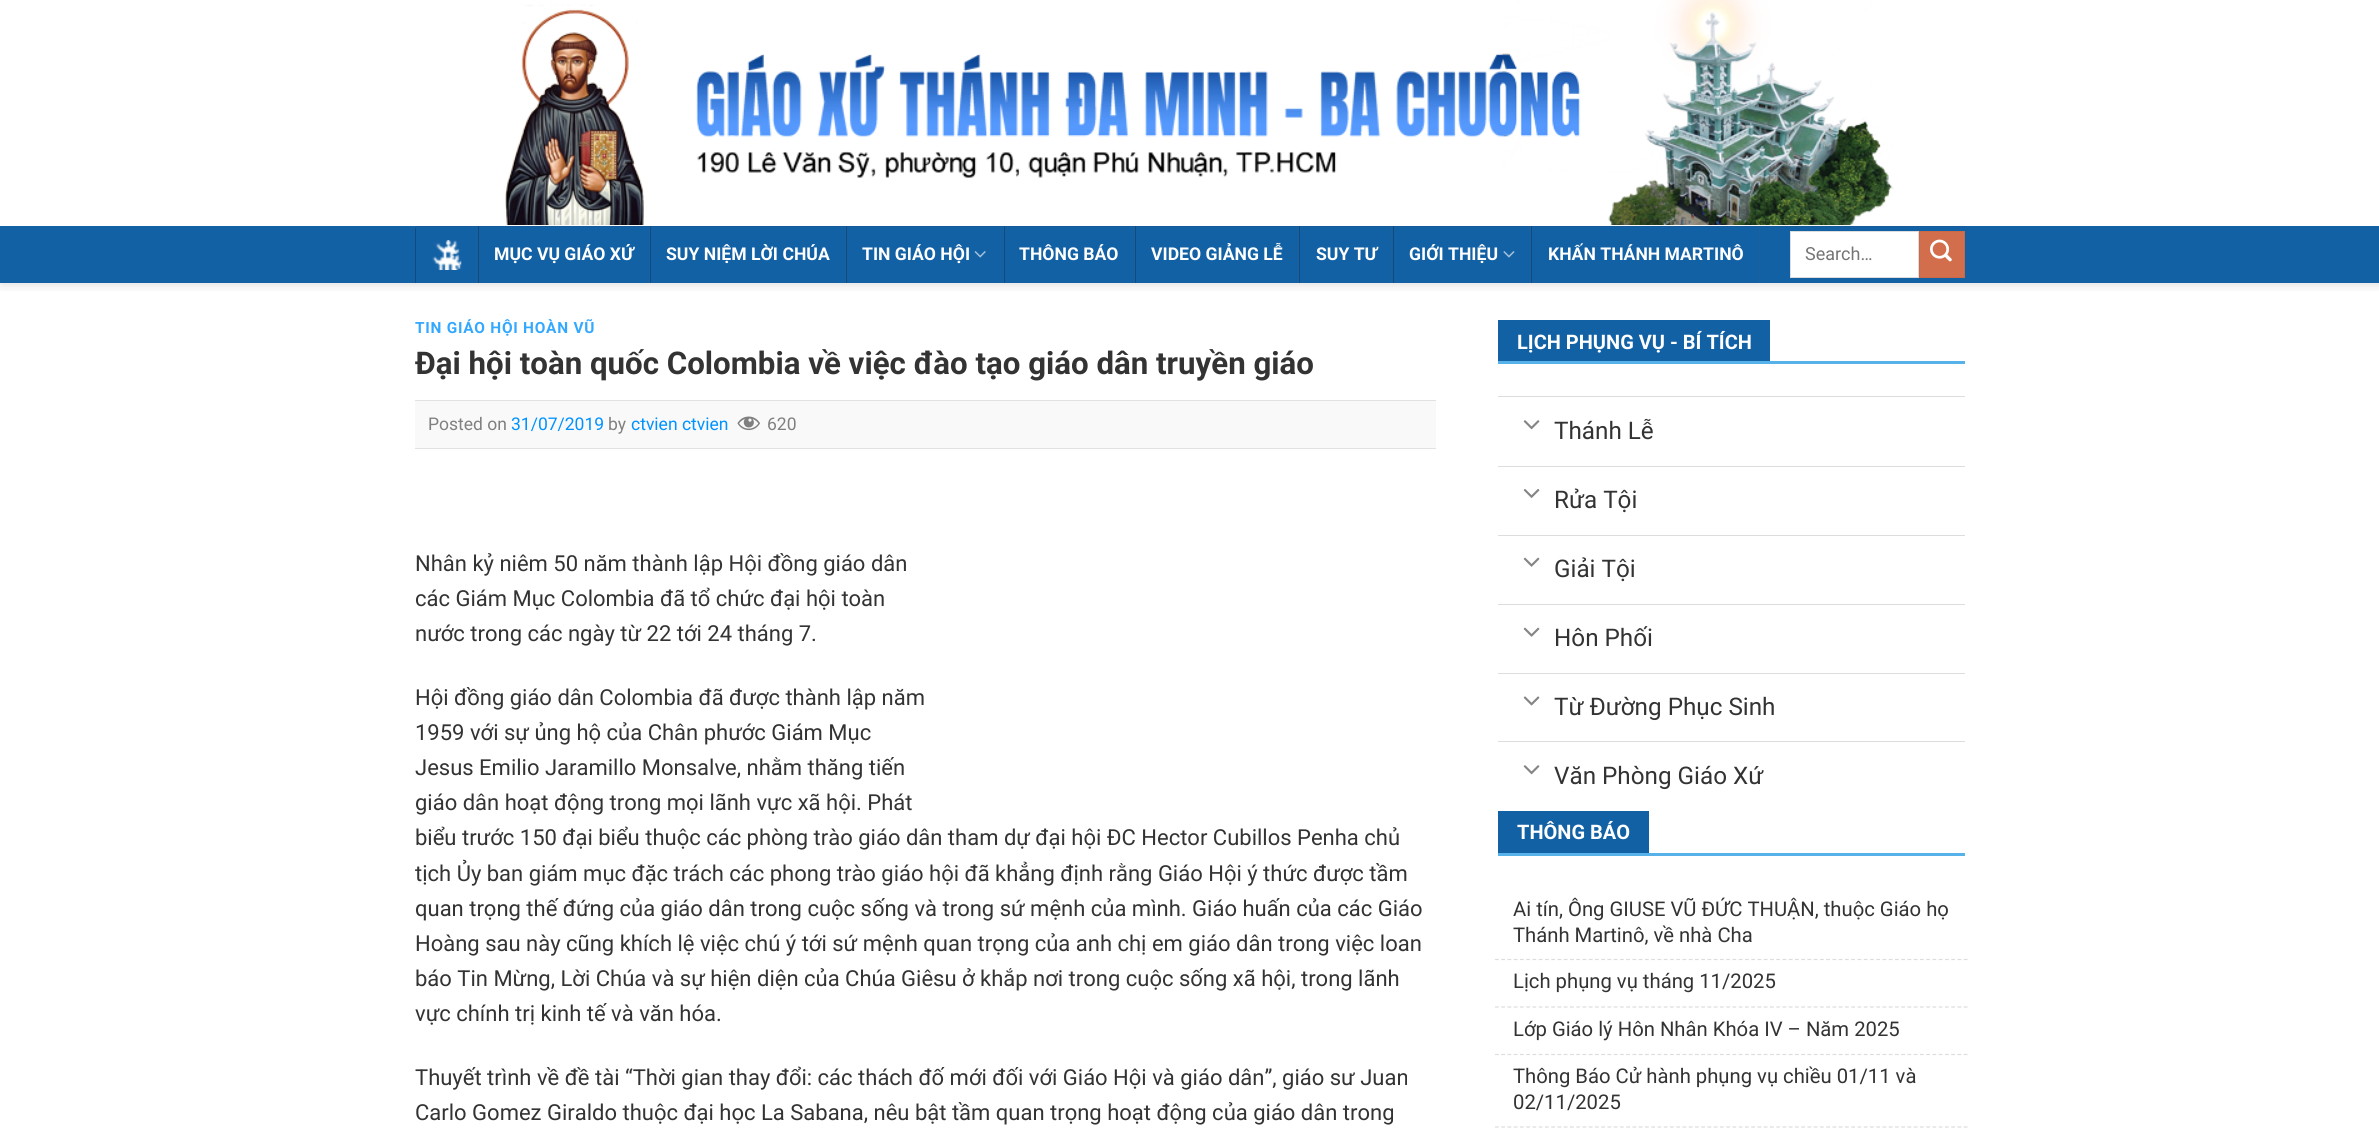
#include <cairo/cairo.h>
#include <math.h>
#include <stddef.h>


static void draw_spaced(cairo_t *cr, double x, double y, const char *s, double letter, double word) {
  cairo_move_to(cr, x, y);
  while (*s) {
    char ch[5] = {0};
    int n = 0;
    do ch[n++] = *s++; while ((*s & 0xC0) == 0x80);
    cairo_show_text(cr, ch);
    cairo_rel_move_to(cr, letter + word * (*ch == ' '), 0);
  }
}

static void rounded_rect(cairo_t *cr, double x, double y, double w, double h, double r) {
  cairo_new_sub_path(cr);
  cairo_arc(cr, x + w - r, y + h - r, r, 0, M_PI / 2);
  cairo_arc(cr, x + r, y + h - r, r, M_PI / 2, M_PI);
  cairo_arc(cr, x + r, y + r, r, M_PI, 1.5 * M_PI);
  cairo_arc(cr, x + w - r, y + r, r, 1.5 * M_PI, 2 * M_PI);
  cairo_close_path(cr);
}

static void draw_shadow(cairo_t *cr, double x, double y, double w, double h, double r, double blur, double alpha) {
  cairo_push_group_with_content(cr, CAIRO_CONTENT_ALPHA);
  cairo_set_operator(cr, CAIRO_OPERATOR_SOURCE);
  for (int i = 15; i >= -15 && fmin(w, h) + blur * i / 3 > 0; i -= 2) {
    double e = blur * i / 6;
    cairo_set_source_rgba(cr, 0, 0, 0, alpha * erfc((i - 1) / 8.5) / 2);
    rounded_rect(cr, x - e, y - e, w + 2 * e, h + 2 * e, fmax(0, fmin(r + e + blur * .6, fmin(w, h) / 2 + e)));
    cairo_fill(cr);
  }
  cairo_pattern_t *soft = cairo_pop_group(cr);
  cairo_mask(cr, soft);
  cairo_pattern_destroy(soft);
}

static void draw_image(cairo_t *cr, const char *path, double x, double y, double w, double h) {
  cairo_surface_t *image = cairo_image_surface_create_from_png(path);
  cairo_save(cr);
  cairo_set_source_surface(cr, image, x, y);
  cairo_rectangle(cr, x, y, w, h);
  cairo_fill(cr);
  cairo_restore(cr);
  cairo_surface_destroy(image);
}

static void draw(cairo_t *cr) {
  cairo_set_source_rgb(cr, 1, 1, 1);
  cairo_paint(cr);
  cairo_save(cr);
  cairo_rectangle(cr, 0, 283, 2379, 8);
  cairo_clip(cr);
  cairo_set_source_rgb(cr, 0, 0, 0);
  draw_shadow(cr, 1, 1, 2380, 283, 0, 6, 0.15);
  cairo_restore(cr);
  draw_image(cr, "images/1.png", 505, 0, 1389, 225);
  cairo_set_source_rgb(cr, 19 / 255.0, 97 / 255.0, 165 / 255.0);
  cairo_rectangle(cr, 0, 226, 2379, 57);
  cairo_fill(cr);
  cairo_set_source_rgb(cr, 22 / 255.0, 92 / 255.0, 154 / 255.0);
  cairo_rectangle(cr, 415, 226, 1550, 1);
  cairo_fill(cr);
  cairo_set_source_rgb(cr, 29 / 255.0, 96 / 255.0, 158 / 255.0);
  cairo_rectangle(cr, 476, 228, 1, 55);
  cairo_fill(cr);
  cairo_set_source_rgb(cr, 17 / 255.0, 74 / 255.0, 127 / 255.0);
  cairo_rectangle(cr, 415, 228, 1, 55);
  cairo_fill(cr);
  draw_image(cr, "images/2.png", 432, 240, 30, 30);
  cairo_set_source_rgb(cr, 29 / 255.0, 96 / 255.0, 158 / 255.0);
  cairo_rectangle(cr, 649, 226, 1, 57);
  cairo_fill(cr);
  cairo_set_source_rgb(cr, 31 / 255.0, 92 / 255.0, 147 / 255.0);
  cairo_rectangle(cr, 649, 226, 1, 1);
  cairo_fill(cr);
  cairo_set_source_rgb(cr, 17 / 255.0, 74 / 255.0, 127 / 255.0);
  cairo_rectangle(cr, 478, 226, 1, 57);
  cairo_fill(cr);
  cairo_set_source_rgb(cr, 20 / 255.0, 72 / 255.0, 119 / 255.0);
  cairo_rectangle(cr, 478, 226, 1, 1);
  cairo_fill(cr);
  cairo_set_source_rgb(cr, 29 / 255.0, 96 / 255.0, 158 / 255.0);
  cairo_rectangle(cr, 845, 226, 1, 57);
  cairo_fill(cr);
  cairo_set_source_rgb(cr, 31 / 255.0, 92 / 255.0, 147 / 255.0);
  cairo_rectangle(cr, 845, 226, 1, 1);
  cairo_fill(cr);
  cairo_set_source_rgb(cr, 17 / 255.0, 74 / 255.0, 127 / 255.0);
  cairo_rectangle(cr, 650, 226, 1, 57);
  cairo_fill(cr);
  cairo_set_source_rgb(cr, 20 / 255.0, 72 / 255.0, 119 / 255.0);
  cairo_rectangle(cr, 650, 226, 1, 1);
  cairo_fill(cr);
  cairo_set_source_rgb(cr, 29 / 255.0, 96 / 255.0, 158 / 255.0);
  cairo_rectangle(cr, 1003, 226, 1, 57);
  cairo_fill(cr);
  cairo_set_source_rgb(cr, 31 / 255.0, 92 / 255.0, 147 / 255.0);
  cairo_rectangle(cr, 1003, 226, 1, 1);
  cairo_fill(cr);
  cairo_set_source_rgb(cr, 17 / 255.0, 74 / 255.0, 127 / 255.0);
  cairo_rectangle(cr, 846, 226, 1, 57);
  cairo_fill(cr);
  cairo_set_source_rgb(cr, 20 / 255.0, 72 / 255.0, 119 / 255.0);
  cairo_rectangle(cr, 846, 226, 1, 1);
  cairo_fill(cr);
  draw_image(cr, "images/3.png", 974, 251, 12, 7);
  cairo_set_source_rgb(cr, 29 / 255.0, 96 / 255.0, 158 / 255.0);
  cairo_rectangle(cr, 1134, 226, 1, 57);
  cairo_fill(cr);
  cairo_set_source_rgb(cr, 31 / 255.0, 92 / 255.0, 147 / 255.0);
  cairo_rectangle(cr, 1134, 226, 1, 1);
  cairo_fill(cr);
  cairo_set_source_rgb(cr, 17 / 255.0, 74 / 255.0, 127 / 255.0);
  cairo_rectangle(cr, 1004, 226, 1, 57);
  cairo_fill(cr);
  cairo_set_source_rgb(cr, 20 / 255.0, 72 / 255.0, 119 / 255.0);
  cairo_rectangle(cr, 1004, 226, 1, 1);
  cairo_fill(cr);
  cairo_set_source_rgb(cr, 29 / 255.0, 96 / 255.0, 158 / 255.0);
  cairo_rectangle(cr, 1298, 226, 1, 57);
  cairo_fill(cr);
  cairo_set_source_rgb(cr, 31 / 255.0, 92 / 255.0, 147 / 255.0);
  cairo_rectangle(cr, 1298, 226, 1, 1);
  cairo_fill(cr);
  cairo_set_source_rgb(cr, 17 / 255.0, 74 / 255.0, 127 / 255.0);
  cairo_rectangle(cr, 1135, 226, 1, 57);
  cairo_fill(cr);
  cairo_set_source_rgb(cr, 20 / 255.0, 72 / 255.0, 119 / 255.0);
  cairo_rectangle(cr, 1135, 226, 1, 1);
  cairo_fill(cr);
  cairo_set_source_rgb(cr, 29 / 255.0, 96 / 255.0, 158 / 255.0);
  cairo_rectangle(cr, 1391, 226, 1, 57);
  cairo_fill(cr);
  cairo_set_source_rgb(cr, 31 / 255.0, 92 / 255.0, 147 / 255.0);
  cairo_rectangle(cr, 1391, 226, 1, 1);
  cairo_fill(cr);
  cairo_set_source_rgb(cr, 17 / 255.0, 74 / 255.0, 127 / 255.0);
  cairo_rectangle(cr, 1299, 226, 1, 57);
  cairo_fill(cr);
  cairo_set_source_rgb(cr, 20 / 255.0, 72 / 255.0, 119 / 255.0);
  cairo_rectangle(cr, 1299, 226, 1, 1);
  cairo_fill(cr);
  cairo_set_source_rgb(cr, 29 / 255.0, 96 / 255.0, 158 / 255.0);
  cairo_rectangle(cr, 1530, 226, 1, 57);
  cairo_fill(cr);
  cairo_set_source_rgb(cr, 31 / 255.0, 92 / 255.0, 147 / 255.0);
  cairo_rectangle(cr, 1530, 226, 1, 1);
  cairo_fill(cr);
  cairo_set_source_rgb(cr, 17 / 255.0, 74 / 255.0, 127 / 255.0);
  cairo_rectangle(cr, 1393, 226, 1, 57);
  cairo_fill(cr);
  cairo_set_source_rgb(cr, 20 / 255.0, 72 / 255.0, 119 / 255.0);
  cairo_rectangle(cr, 1393, 226, 1, 1);
  cairo_fill(cr);
  draw_image(cr, "images/4.png", 1503, 251, 12, 7);
  cairo_set_source_rgb(cr, 29 / 255.0, 96 / 255.0, 158 / 255.0);
  cairo_rectangle(cr, 1759, 226, 1, 57);
  cairo_fill(cr);
  cairo_set_source_rgb(cr, 31 / 255.0, 92 / 255.0, 147 / 255.0);
  cairo_rectangle(cr, 1759, 226, 1, 1);
  cairo_fill(cr);
  cairo_set_source_rgb(cr, 17 / 255.0, 74 / 255.0, 127 / 255.0);
  cairo_rectangle(cr, 1531, 226, 1, 57);
  cairo_fill(cr);
  cairo_set_source_rgb(cr, 20 / 255.0, 72 / 255.0, 119 / 255.0);
  cairo_rectangle(cr, 1531, 226, 1, 1);
  cairo_fill(cr);
  cairo_set_source_rgb(cr, 1, 1, 1);
  cairo_rectangle(cr, 1790.5, 231.5, 128, 46);
  cairo_fill_preserve(cr);
  cairo_set_source_rgb(cr, 221 / 255.0, 221 / 255.0, 221 / 255.0);
  cairo_set_line_width(cr, 1);
  cairo_stroke(cr);
  cairo_set_source_rgb(cr, 210 / 255.0, 110 / 255.0, 75 / 255.0);
  cairo_rectangle(cr, 1919.5, 231.5, 45, 46);
  cairo_fill_preserve(cr);
  cairo_set_source_rgb(cr, 200 / 255.0, 105 / 255.0, 71 / 255.0);
  cairo_stroke(cr);
  draw_image(cr, "images/5.png", 1930, 239, 22, 23);
  cairo_set_source_rgb(cr, 249 / 255.0, 249 / 255.0, 249 / 255.0);
  cairo_rectangle(cr, 415, 401, 1021, 47);
  cairo_fill(cr);
  cairo_set_source_rgb(cr, 226 / 255.0, 226 / 255.0, 226 / 255.0);
  cairo_rectangle(cr, 415, 400, 1021, 1);
  cairo_fill(cr);
  cairo_rectangle(cr, 415, 448, 1021, 1);
  cairo_fill(cr);
  draw_image(cr, "images/6.png", 737, 416, 23, 15);
  cairo_set_source_rgb(cr, 87 / 255.0, 178 / 255.0, 233 / 255.0);
  cairo_rectangle(cr, 1498, 361, 467, 3);
  cairo_fill(cr);
  cairo_set_source_rgb(cr, 18 / 255.0, 97 / 255.0, 165 / 255.0);
  cairo_rectangle(cr, 1498, 320, 272, 41);
  cairo_fill(cr);
  cairo_set_source_rgb(cr, 221 / 255.0, 221 / 255.0, 221 / 255.0);
  cairo_rectangle(cr, 1498, 396, 467, 1);
  cairo_fill(cr);
  draw_image(cr, "images/7.png", 1523, 420, 17, 10);
  cairo_rectangle(cr, 1498, 466, 467, 1);
  cairo_fill(cr);
  draw_image(cr, "images/8.png", 1523, 489, 17, 9);
  cairo_rectangle(cr, 1498, 535, 467, 1);
  cairo_fill(cr);
  draw_image(cr, "images/9.png", 1523, 557, 17, 10);
  cairo_rectangle(cr, 1498, 604, 467, 1);
  cairo_fill(cr);
  draw_image(cr, "images/9.png", 1523, 627, 17, 10);
  cairo_rectangle(cr, 1498, 673, 467, 1);
  cairo_fill(cr);
  draw_image(cr, "images/10.png", 1523, 696, 17, 10);
  cairo_rectangle(cr, 1498, 741, 467, 1);
  cairo_fill(cr);
  draw_image(cr, "images/7.png", 1523, 765, 17, 10);
  cairo_set_source_rgb(cr, 87 / 255.0, 178 / 255.0, 233 / 255.0);
  cairo_rectangle(cr, 1498, 853, 467, 3);
  cairo_fill(cr);
  cairo_set_source_rgb(cr, 18 / 255.0, 97 / 255.0, 165 / 255.0);
  cairo_rectangle(cr, 1498, 811, 151, 42);
  cairo_fill(cr);
  cairo_new_path(cr);
  cairo_move_to(cr, 1495, 959.5);
  cairo_line_to(cr, 1967.5, 959.5);
  cairo_set_source_rgb(cr, 221 / 255.0, 221 / 255.0, 221 / 255.0);
  cairo_set_line_width(cr, 1.2);
  cairo_set_dash(cr, (double[]){3.75, 2.5}, 2, 0);
  cairo_stroke(cr);
  cairo_new_path(cr);
  cairo_move_to(cr, 1495, 1007);
  cairo_line_to(cr, 1967.5, 1007);
  cairo_stroke(cr);
  cairo_new_path(cr);
  cairo_move_to(cr, 1495, 1054.5);
  cairo_line_to(cr, 1967.5, 1054.5);
  cairo_stroke(cr);
  cairo_new_path(cr);
  cairo_move_to(cr, 1495, 1127);
  cairo_line_to(cr, 1967.5, 1127);
  cairo_stroke(cr);
  cairo_select_font_face(cr, "Roboto", CAIRO_FONT_SLANT_NORMAL, CAIRO_FONT_WEIGHT_BOLD);
  cairo_set_font_size(cr, 17.6);
  cairo_set_source_rgb(cr, 1, 1, 1);
  cairo_move_to(cr, 494, 260);
  cairo_show_text(cr, "MỤC VỤ GIÁO XỨ");
  cairo_move_to(cr, 666, 260);
  cairo_show_text(cr, "SUY NIỆM LỜI CHÚA");
  cairo_move_to(cr, 862, 260);
  cairo_show_text(cr, "TIN GIÁO HỘI");
  cairo_move_to(cr, 1019, 260);
  cairo_show_text(cr, "THÔNG BÁO");
  cairo_move_to(cr, 1151, 260);
  cairo_show_text(cr, "VIDEO GIẢNG LỄ");
  cairo_move_to(cr, 1316, 260);
  cairo_show_text(cr, "SUY TƯ");
  cairo_move_to(cr, 1409, 260);
  cairo_show_text(cr, "GIỚI THIỆU");
  cairo_move_to(cr, 1548, 260);
  cairo_show_text(cr, "KHẤN THÁNH MARTINÔ");
  cairo_select_font_face(cr, "Roboto", CAIRO_FONT_SLANT_NORMAL, CAIRO_FONT_WEIGHT_NORMAL);
  cairo_set_font_size(cr, 18);
  cairo_set_source_rgb(cr, 117 / 255.0, 117 / 255.0, 117 / 255.0);
  cairo_move_to(cr, 1805, 260);
  cairo_show_text(cr, "Search…");
  cairo_select_font_face(cr, "Roboto", CAIRO_FONT_SLANT_NORMAL, CAIRO_FONT_WEIGHT_BOLD);
  cairo_set_font_size(cr, 15.4);
  cairo_set_source_rgb(cr, 51 / 255.0, 168 / 255.0, 1);
  draw_spaced(cr, 415, 333, "TIN GIÁO HỘI HOÀN VŨ", 0.75, 0);
  cairo_set_font_size(cr, 31.25);
  cairo_set_source_rgb(cr, 51 / 255.0, 51 / 255.0, 51 / 255.0);
  cairo_move_to(cr, 415, 374);
  cairo_show_text(cr, "Đại hội toàn quốc Colombia về việc đào tạo giáo dân truyền giáo");
  cairo_select_font_face(cr, "Roboto", CAIRO_FONT_SLANT_NORMAL, CAIRO_FONT_WEIGHT_NORMAL);
  cairo_set_font_size(cr, 17.5);
  cairo_set_source_rgb(cr, 128 / 255.0, 128 / 255.0, 128 / 255.0);
  cairo_move_to(cr, 428, 430);
  cairo_show_text(cr, "Posted on");
  cairo_set_source_rgb(cr, 0, 146 / 255.0, 1);
  cairo_move_to(cr, 511, 430);
  cairo_show_text(cr, "31/07/2019");
  cairo_set_source_rgb(cr, 128 / 255.0, 128 / 255.0, 128 / 255.0);
  cairo_move_to(cr, 608, 430);
  cairo_show_text(cr, "by");
  cairo_set_source_rgb(cr, 0, 146 / 255.0, 1);
  cairo_move_to(cr, 631, 430);
  cairo_show_text(cr, "ctvien ctvien");
  cairo_set_source_rgb(cr, 128 / 255.0, 128 / 255.0, 128 / 255.0);
  cairo_move_to(cr, 767, 430);
  cairo_show_text(cr, "620");
  cairo_set_font_size(cr, 22);
  cairo_set_source_rgb(cr, 51 / 255.0, 51 / 255.0, 51 / 255.0);
  cairo_move_to(cr, 415, 571);
  cairo_show_text(cr, "Nhân kỷ niêm 50 năm thành lập Hội đồng giáo dân");
  cairo_move_to(cr, 415, 606);
  cairo_show_text(cr, "các Giám Mục Colombia đã tổ chức đại hội toàn");
  cairo_move_to(cr, 415, 641);
  cairo_show_text(cr, "nước trong các ngày từ 22 tới 24 tháng 7.");
  cairo_move_to(cr, 415, 705);
  cairo_show_text(cr, "Hội đồng giáo dân Colombia đã được thành lập năm");
  cairo_move_to(cr, 415, 740);
  cairo_show_text(cr, "1959 với sự ủng hộ của Chân phước Giám Mục");
  cairo_move_to(cr, 415, 775);
  cairo_show_text(cr, "Jesus Emilio Jaramillo Monsalve, nhằm thăng tiến");
  cairo_move_to(cr, 415, 810);
  cairo_show_text(cr, "giáo dân hoạt động trong mọi lãnh vực xã hội. Phát");
  cairo_move_to(cr, 415, 845);
  cairo_show_text(cr, "biểu trước 150 đại biểu thuộc các phòng trào giáo dân tham dự đại hội ĐC Hector Cubillos Penha chủ");
  cairo_move_to(cr, 415, 881);
  cairo_show_text(cr, "tịch Ủy ban giám mục đặc trách các phong trào giáo hội đã khẳng định rằng Giáo Hội ý thức được tầm");
  cairo_move_to(cr, 415, 916);
  cairo_show_text(cr, "quan trọng thế đứng của giáo dân trong cuộc sống và trong sứ mệnh của mình. Giáo huấn của các Giáo");
  cairo_move_to(cr, 415, 951);
  cairo_show_text(cr, "Hoàng sau này cũng khích lệ việc chú ý tới sứ mệnh quan trọng của anh chị em giáo dân trong việc loan");
  cairo_move_to(cr, 415, 986);
  cairo_show_text(cr, "báo Tin Mừng, Lời Chúa và sự hiện diện của Chúa Giêsu ở khắp nơi trong cuộc sống xã hội, trong lãnh");
  cairo_move_to(cr, 415, 1021);
  cairo_show_text(cr, "vực chính trị kinh tế và văn hóa.");
  cairo_move_to(cr, 415, 1085);
  cairo_show_text(cr, "Thuyết trình về đề tài “Thời gian thay đổi: các thách đố mới đối với Giáo Hội và giáo dân”, giáo sư Juan");
  cairo_move_to(cr, 415, 1120);
  cairo_show_text(cr, "Carlo Gomez Giraldo thuộc đại học La Sabana, nêu bật tầm quan trọng hoạt động của giáo dân trong");
  cairo_select_font_face(cr, "Roboto", CAIRO_FONT_SLANT_NORMAL, CAIRO_FONT_WEIGHT_BOLD);
  cairo_set_font_size(cr, 20);
  cairo_set_source_rgb(cr, 1, 1, 1);
  cairo_move_to(cr, 1517, 349);
  cairo_show_text(cr, "LỊCH PHỤNG VỤ - BÍ TÍCH");
  cairo_select_font_face(cr, "Roboto", CAIRO_FONT_SLANT_NORMAL, CAIRO_FONT_WEIGHT_NORMAL);
  cairo_set_font_size(cr, 24.25);
  cairo_set_source_rgb(cr, 51 / 255.0, 51 / 255.0, 51 / 255.0);
  cairo_move_to(cr, 1554, 439);
  cairo_show_text(cr, "Thánh Lễ");
  cairo_move_to(cr, 1554, 508);
  cairo_show_text(cr, "Rửa Tội");
  cairo_move_to(cr, 1554, 577);
  cairo_show_text(cr, "Giải Tội");
  cairo_move_to(cr, 1554, 646);
  cairo_show_text(cr, "Hôn Phối");
  cairo_move_to(cr, 1554, 715);
  cairo_show_text(cr, "Từ Đường Phục Sinh");
  cairo_move_to(cr, 1554, 784);
  cairo_show_text(cr, "Văn Phòng Giáo Xứ");
  cairo_select_font_face(cr, "Roboto", CAIRO_FONT_SLANT_NORMAL, CAIRO_FONT_WEIGHT_BOLD);
  cairo_set_font_size(cr, 20);
  cairo_set_source_rgb(cr, 1, 1, 1);
  cairo_move_to(cr, 1517, 839);
  cairo_show_text(cr, "THÔNG BÁO");
  cairo_select_font_face(cr, "Roboto", CAIRO_FONT_SLANT_NORMAL, CAIRO_FONT_WEIGHT_NORMAL);
  cairo_set_font_size(cr, 20.25);
  cairo_set_source_rgb(cr, 51 / 255.0, 51 / 255.0, 51 / 255.0);
  cairo_move_to(cr, 1513, 916);
  cairo_show_text(cr, "Ai tín, Ông GIUSE VŨ ĐỨC THUẬN, thuộc Giáo họ");
  cairo_move_to(cr, 1513, 942);
  cairo_show_text(cr, "Thánh Martinô, về nhà Cha");
  cairo_move_to(cr, 1513, 988);
  cairo_show_text(cr, "Lịch phụng vụ tháng 11/2025");
  cairo_move_to(cr, 1513, 1036);
  cairo_show_text(cr, "Lớp Giáo lý Hôn Nhân Khóa IV – Năm 2025");
  cairo_move_to(cr, 1513, 1083);
  cairo_show_text(cr, "Thông Báo Cử hành phụng vụ chiều 01/11 và");
  cairo_move_to(cr, 1513, 1109);
  cairo_show_text(cr, "02/11/2025");
}

int main(void) {
  cairo_surface_t *surface = cairo_image_surface_create(CAIRO_FORMAT_RGB24, 2379, 1144);
  cairo_t *cr = cairo_create(surface);
  cairo_font_options_t *options = cairo_font_options_create();
  cairo_font_options_set_hint_metrics(options, CAIRO_HINT_METRICS_OFF);
  cairo_font_options_set_hint_style(options, CAIRO_HINT_STYLE_NONE);
  cairo_set_font_options(cr, options);
  cairo_set_miter_limit(cr, 4);
  draw(cr);
  cairo_surface_write_to_png(surface, "out.png");
  cairo_font_options_destroy(options);
  cairo_destroy(cr);
  cairo_surface_destroy(surface);
  return 0;
}
